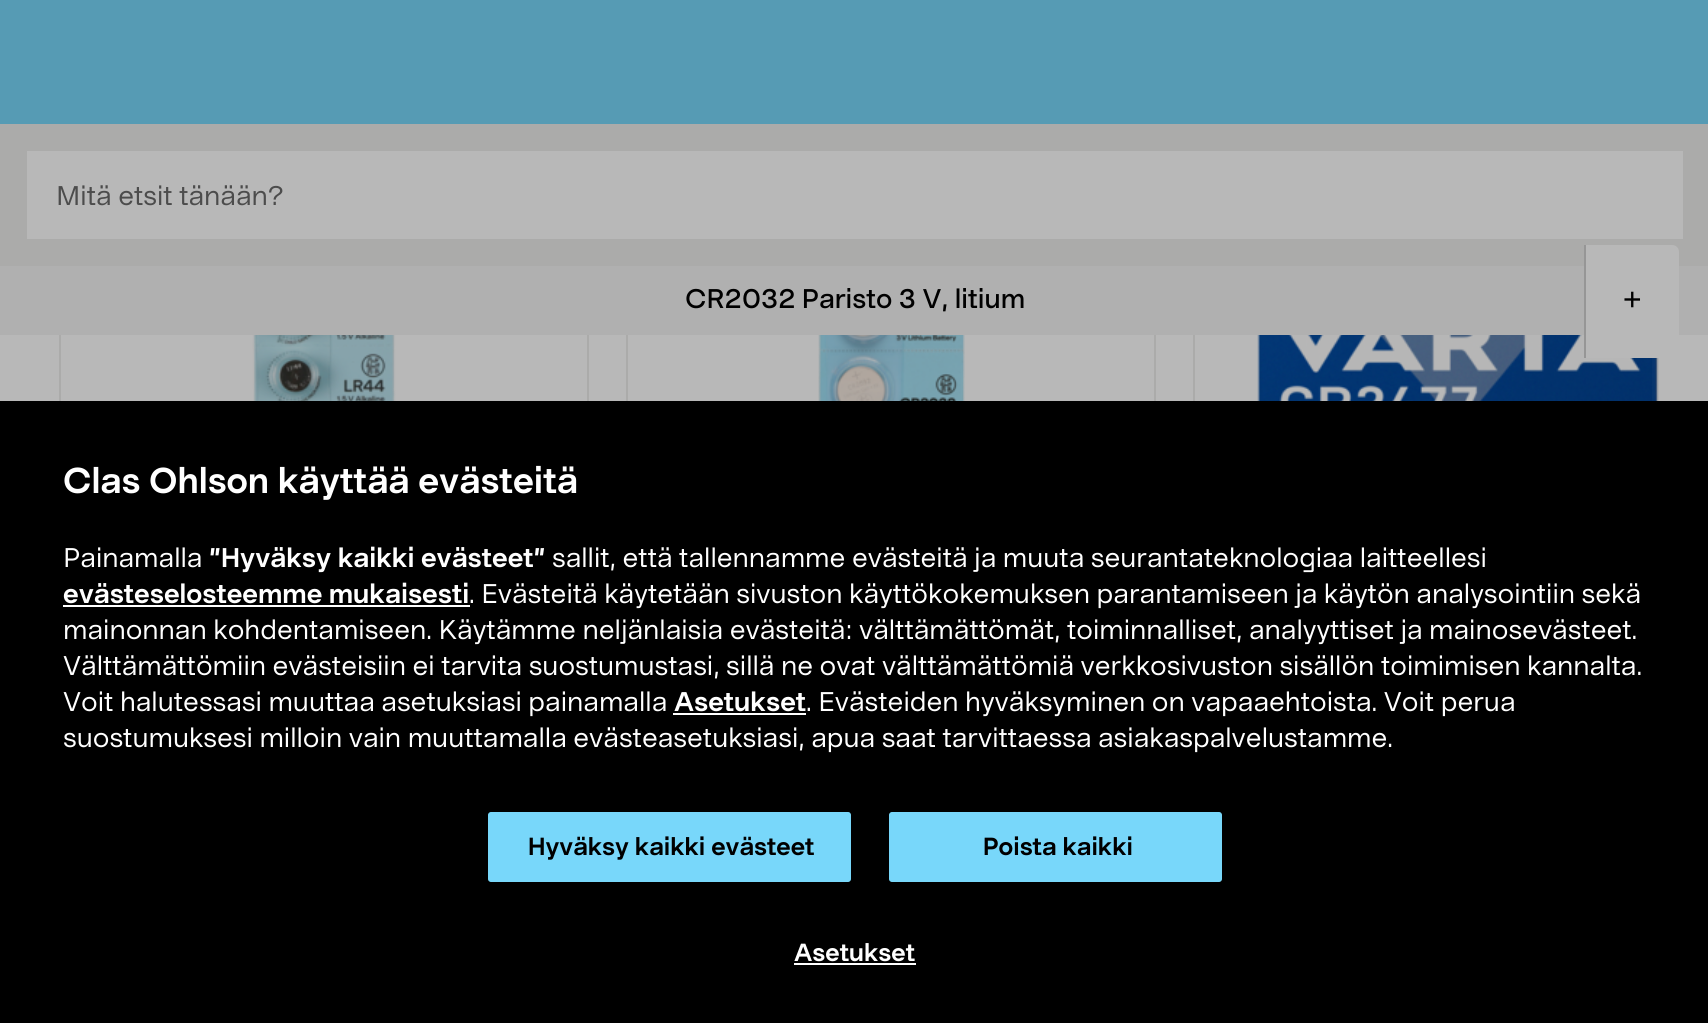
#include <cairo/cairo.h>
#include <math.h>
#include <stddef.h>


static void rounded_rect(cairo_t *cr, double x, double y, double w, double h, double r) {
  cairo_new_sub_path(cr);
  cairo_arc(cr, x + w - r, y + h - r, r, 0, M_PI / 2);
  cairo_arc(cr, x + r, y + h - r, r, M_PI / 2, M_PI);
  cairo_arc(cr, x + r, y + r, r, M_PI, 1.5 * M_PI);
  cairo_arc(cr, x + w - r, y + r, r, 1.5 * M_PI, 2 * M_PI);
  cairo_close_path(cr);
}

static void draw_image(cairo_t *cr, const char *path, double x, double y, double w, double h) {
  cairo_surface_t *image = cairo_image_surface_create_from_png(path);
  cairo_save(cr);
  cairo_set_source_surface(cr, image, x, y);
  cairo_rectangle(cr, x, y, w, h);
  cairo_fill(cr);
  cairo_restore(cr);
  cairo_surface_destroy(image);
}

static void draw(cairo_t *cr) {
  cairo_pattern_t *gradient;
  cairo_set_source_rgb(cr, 184 / 255.0, 184 / 255.0, 184 / 255.0);
  cairo_paint(cr);
  cairo_set_source_rgb(cr, 86 / 255.0, 155 / 255.0, 180 / 255.0);
  cairo_rectangle(cr, 0, 0, 1708, 124);
  cairo_fill(cr);
  cairo_set_source_rgb(cr, 171 / 255.0, 171 / 255.0, 170 / 255.0);
  cairo_rectangle(cr, 0, 124, 1708, 142);
  cairo_fill(cr);
  cairo_set_source_rgb(cr, 184 / 255.0, 184 / 255.0, 184 / 255.0);
  cairo_rectangle(cr, 27, 151, 1656, 88);
  cairo_fill(cr);
  cairo_set_source_rgb(cr, 176 / 255.0, 176 / 255.0, 176 / 255.0);
  cairo_rectangle(cr, 0, 266, 1708, 69);
  cairo_fill(cr);
  draw_image(cr, "images/3.png", 1257, 335, 402, 66);
  gradient = cairo_pattern_create_linear(1649, 680, 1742, 680);
  cairo_pattern_add_color_stop_rgba(gradient, 0, 184 / 255.0, 184 / 255.0, 184 / 255.0, 0);
  cairo_pattern_add_color_stop_rgba(gradient, 1, 184 / 255.0, 184 / 255.0, 184 / 255.0, 0.66);
  cairo_set_source(cr, gradient);
  cairo_pattern_destroy(gradient);
  cairo_rectangle(cr, 1652, 335, 5, 66);
  cairo_fill(cr);
  cairo_set_source_rgb(cr, 184 / 255.0, 184 / 255.0, 184 / 255.0);
  cairo_new_path(cr);
  cairo_move_to(cr, 1584, 245);
  cairo_line_to(cr, 1672, 245);
  cairo_curve_to(cr, 1676, 245, 1679, 248, 1679, 252);
  cairo_line_to(cr, 1679, 351);
  cairo_curve_to(cr, 1679, 355, 1676, 358, 1672, 358);
  cairo_line_to(cr, 1584, 358);
  cairo_close_path(cr);
  cairo_fill(cr);
  cairo_set_source_rgb(cr, 150 / 255.0, 150 / 255.0, 150 / 255.0);
  cairo_rectangle(cr, 1584, 245, 2, 113);
  cairo_fill(cr);
  cairo_set_source_rgb(cr, 171 / 255.0, 171 / 255.0, 170 / 255.0);
  cairo_rectangle(cr, 587, 335, 2, 66);
  cairo_fill(cr);
  cairo_rectangle(cr, 59, 335, 2, 66);
  cairo_fill(cr);
  draw_image(cr, "images/1.png", 252, 335, 144, 66);
  cairo_rectangle(cr, 1154, 335, 2, 66);
  cairo_fill(cr);
  cairo_rectangle(cr, 626, 335, 2, 66);
  cairo_fill(cr);
  draw_image(cr, "images/2.png", 818, 335, 147, 66);
  cairo_rectangle(cr, 1193, 335, 2, 66);
  cairo_fill(cr);
  cairo_set_source_rgb(cr, 0, 0, 0);
  cairo_rectangle(cr, 0, 401, 1708, 622);
  cairo_fill(cr);
  cairo_set_source_rgb(cr, 1, 1, 1);
  cairo_rectangle(cr, 63, 605, 407, 2);
  cairo_fill(cr);
  cairo_rectangle(cr, 673, 713, 133, 2);
  cairo_fill(cr);
  cairo_set_source_rgb(cr, 120 / 255.0, 215 / 255.0, 250 / 255.0);
  rounded_rect(cr, 487, 811, 365, 72, 4);
  cairo_fill_preserve(cr);
  cairo_set_source_rgb(cr, 0, 0, 0);
  cairo_stroke(cr);
  cairo_set_source_rgb(cr, 120 / 255.0, 215 / 255.0, 250 / 255.0);
  rounded_rect(cr, 888, 811, 335, 72, 4);
  cairo_fill_preserve(cr);
  cairo_set_source_rgb(cr, 0, 0, 0);
  cairo_stroke(cr);
  cairo_set_source_rgb(cr, 1, 1, 1);
  cairo_rectangle(cr, 794, 963, 122, 2);
  cairo_fill(cr);
  cairo_select_font_face(cr, "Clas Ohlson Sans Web", CAIRO_FONT_SLANT_NORMAL, CAIRO_FONT_WEIGHT_NORMAL);
  cairo_set_font_size(cr, 27);
  cairo_set_source_rgb(cr, 76 / 255.0, 76 / 255.0, 76 / 255.0);
  cairo_move_to(cr, 56, 205);
  cairo_show_text(cr, "Mitä etsit tänään?");
  cairo_select_font_face(cr, "Clas Ohlson Sans Web Medium", CAIRO_FONT_SLANT_NORMAL, CAIRO_FONT_WEIGHT_NORMAL);
  cairo_set_source_rgb(cr, 0, 0, 0);
  cairo_move_to(cr, 685, 308);
  cairo_show_text(cr, "CR2032 Paristo 3 V, litium");
  cairo_select_font_face(cr, "Clas Ohlson Sans Web", CAIRO_FONT_SLANT_NORMAL, CAIRO_FONT_WEIGHT_NORMAL);
  cairo_set_font_size(cr, 32);
  cairo_move_to(cr, 1622, 308);
  cairo_show_text(cr, "+");
  cairo_select_font_face(cr, "Clas Ohlson Sans Web", CAIRO_FONT_SLANT_NORMAL, CAIRO_FONT_WEIGHT_BOLD);
  cairo_set_font_size(cr, 36);
  cairo_set_source_rgb(cr, 1, 1, 1);
  cairo_move_to(cr, 63, 493);
  cairo_show_text(cr, "Clas Ohlson käyttää evästeitä");
  cairo_select_font_face(cr, "Clas Ohlson Sans Web", CAIRO_FONT_SLANT_NORMAL, CAIRO_FONT_WEIGHT_NORMAL);
  cairo_set_font_size(cr, 27);
  cairo_move_to(cr, 63, 567);
  cairo_show_text(cr, "Painamalla");
  cairo_select_font_face(cr, "Clas Ohlson Sans Web", CAIRO_FONT_SLANT_NORMAL, CAIRO_FONT_WEIGHT_BOLD);
  cairo_move_to(cr, 209, 567);
  cairo_show_text(cr, "”Hyväksy kaikki evästeet”");
  cairo_select_font_face(cr, "Clas Ohlson Sans Web", CAIRO_FONT_SLANT_NORMAL, CAIRO_FONT_WEIGHT_NORMAL);
  cairo_move_to(cr, 552, 567);
  cairo_show_text(cr, "sallit, että tallennamme evästeitä ja muuta seurantateknologiaa laitteellesi");
  cairo_select_font_face(cr, "Clas Ohlson Sans Web", CAIRO_FONT_SLANT_NORMAL, CAIRO_FONT_WEIGHT_BOLD);
  cairo_move_to(cr, 63, 603);
  cairo_show_text(cr, "evästeselosteemme mukaisesti");
  cairo_select_font_face(cr, "Clas Ohlson Sans Web", CAIRO_FONT_SLANT_NORMAL, CAIRO_FONT_WEIGHT_NORMAL);
  cairo_move_to(cr, 469, 603);
  cairo_show_text(cr, ". Evästeitä käytetään sivuston käyttökokemuksen parantamiseen ja käytön analysointiin sekä");
  cairo_move_to(cr, 63, 639);
  cairo_show_text(cr, "mainonnan kohdentamiseen. Käytämme neljänlaisia evästeitä: välttämättömät, toiminnalliset, analyyttiset ja mainosevästeet.");
  cairo_move_to(cr, 63, 675);
  cairo_show_text(cr, "Välttämättömiin evästeisiin ei tarvita suostumustasi, sillä ne ovat välttämättömiä verkkosivuston sisällön toimimisen kannalta.");
  cairo_move_to(cr, 63, 711);
  cairo_show_text(cr, "Voit halutessasi muuttaa asetuksiasi painamalla");
  cairo_select_font_face(cr, "Clas Ohlson Sans Web", CAIRO_FONT_SLANT_NORMAL, CAIRO_FONT_WEIGHT_BOLD);
  cairo_move_to(cr, 674, 711);
  cairo_show_text(cr, "Asetukset");
  cairo_select_font_face(cr, "Clas Ohlson Sans Web", CAIRO_FONT_SLANT_NORMAL, CAIRO_FONT_WEIGHT_NORMAL);
  cairo_move_to(cr, 806, 711);
  cairo_show_text(cr, ". Evästeiden hyväksyminen on vapaaehtoista. Voit perua");
  cairo_move_to(cr, 63, 747);
  cairo_show_text(cr, "suostumuksesi milloin vain muuttamalla evästeasetuksiasi, apua saat tarvittaessa asiakaspalvelustamme.");
  cairo_select_font_face(cr, "Clas Ohlson Sans Web", CAIRO_FONT_SLANT_NORMAL, CAIRO_FONT_WEIGHT_BOLD);
  cairo_set_font_size(cr, 24.75);
  cairo_set_source_rgb(cr, 0, 0, 0);
  cairo_move_to(cr, 528, 855);
  cairo_show_text(cr, "Hyväksy kaikki evästeet");
  cairo_move_to(cr, 983, 855);
  cairo_show_text(cr, "Poista kaikki");
  cairo_set_source_rgb(cr, 1, 1, 1);
  cairo_move_to(cr, 794, 961);
  cairo_show_text(cr, "Asetukset");
}

int main(void) {
  cairo_surface_t *surface = cairo_image_surface_create(CAIRO_FORMAT_RGB24, 1708, 1023);
  cairo_t *cr = cairo_create(surface);
  cairo_font_options_t *options = cairo_font_options_create();
  cairo_font_options_set_hint_metrics(options, CAIRO_HINT_METRICS_OFF);
  cairo_font_options_set_hint_style(options, CAIRO_HINT_STYLE_NONE);
  cairo_set_font_options(cr, options);
  cairo_set_miter_limit(cr, 4);
  draw(cr);
  cairo_surface_write_to_png(surface, "out.png");
  cairo_font_options_destroy(options);
  cairo_destroy(cr);
  cairo_surface_destroy(surface);
  return 0;
}
